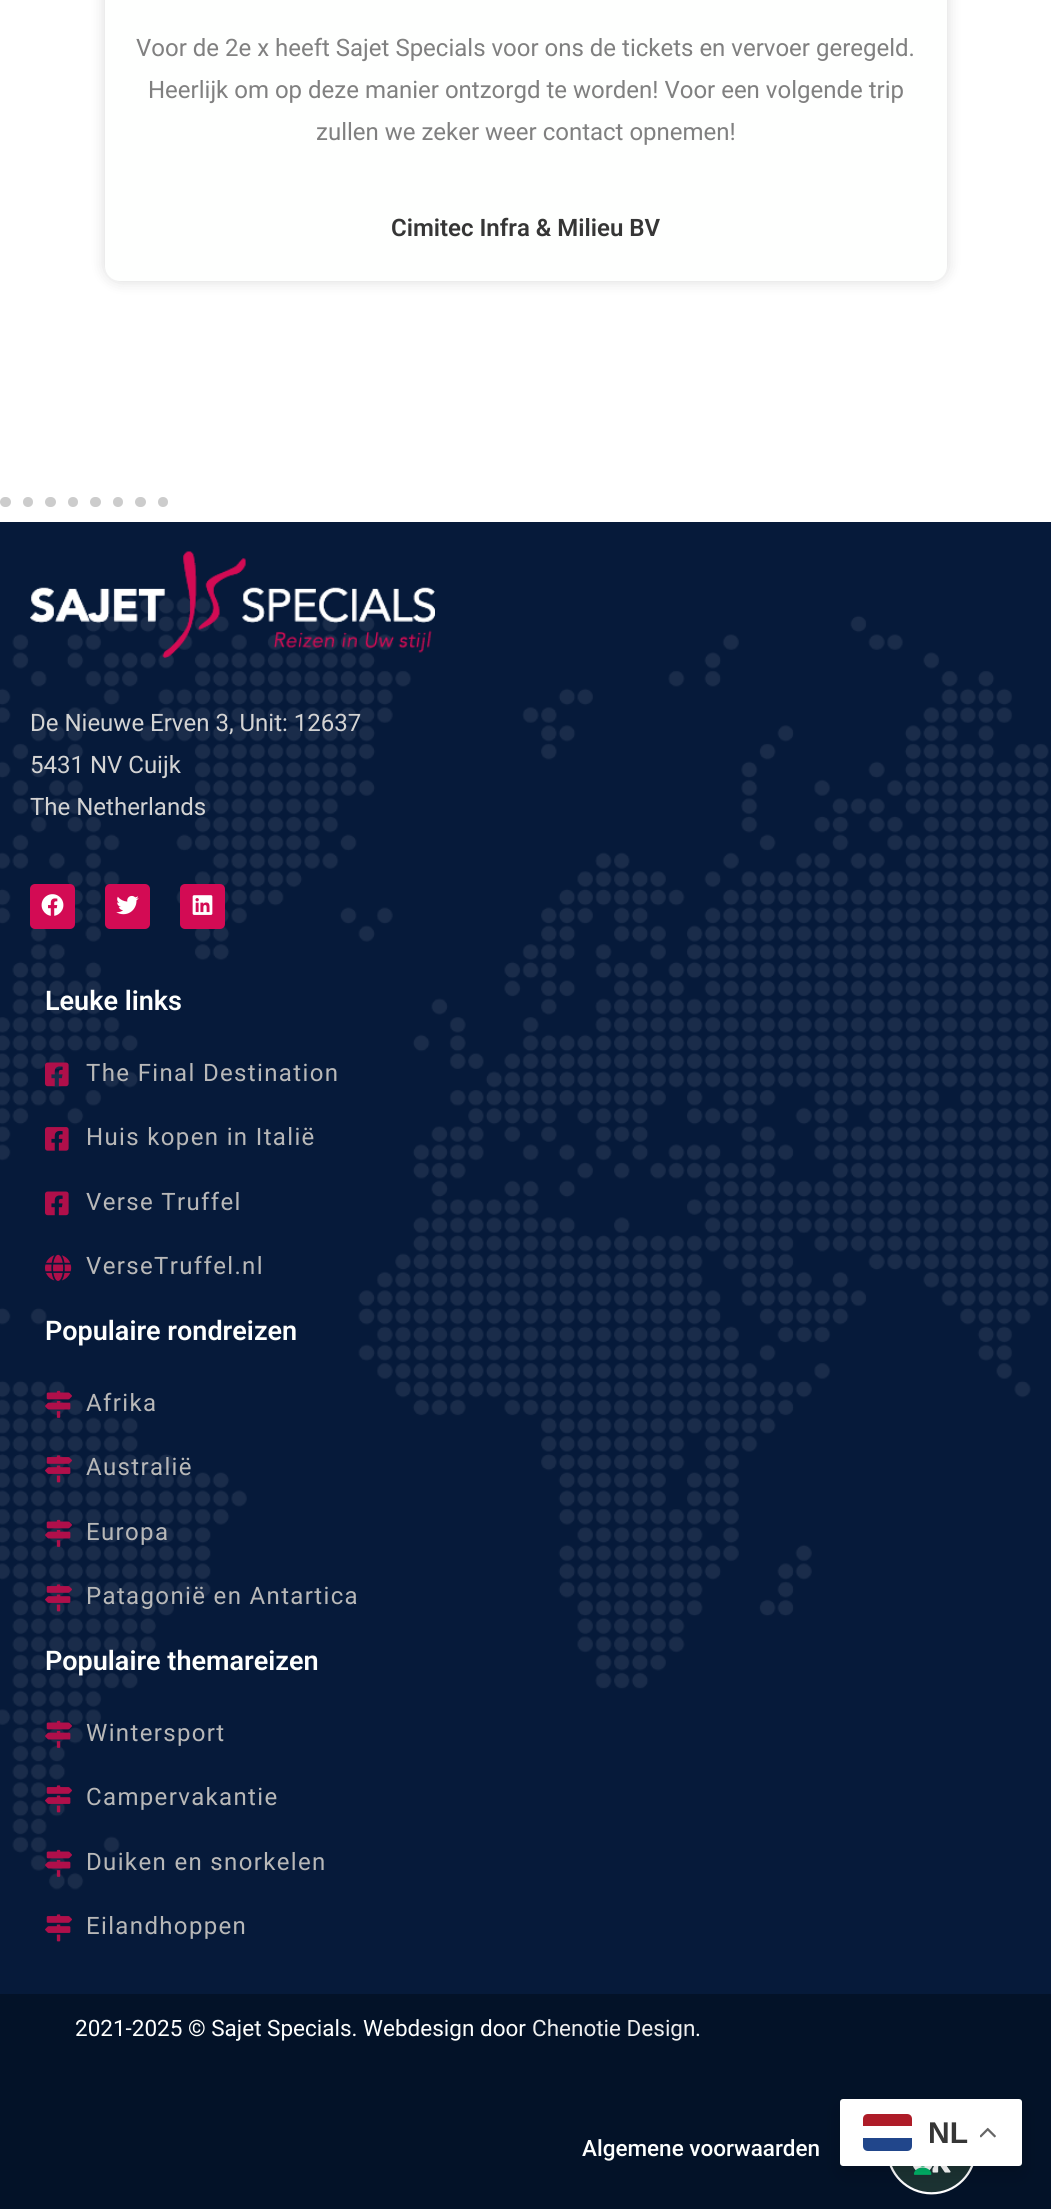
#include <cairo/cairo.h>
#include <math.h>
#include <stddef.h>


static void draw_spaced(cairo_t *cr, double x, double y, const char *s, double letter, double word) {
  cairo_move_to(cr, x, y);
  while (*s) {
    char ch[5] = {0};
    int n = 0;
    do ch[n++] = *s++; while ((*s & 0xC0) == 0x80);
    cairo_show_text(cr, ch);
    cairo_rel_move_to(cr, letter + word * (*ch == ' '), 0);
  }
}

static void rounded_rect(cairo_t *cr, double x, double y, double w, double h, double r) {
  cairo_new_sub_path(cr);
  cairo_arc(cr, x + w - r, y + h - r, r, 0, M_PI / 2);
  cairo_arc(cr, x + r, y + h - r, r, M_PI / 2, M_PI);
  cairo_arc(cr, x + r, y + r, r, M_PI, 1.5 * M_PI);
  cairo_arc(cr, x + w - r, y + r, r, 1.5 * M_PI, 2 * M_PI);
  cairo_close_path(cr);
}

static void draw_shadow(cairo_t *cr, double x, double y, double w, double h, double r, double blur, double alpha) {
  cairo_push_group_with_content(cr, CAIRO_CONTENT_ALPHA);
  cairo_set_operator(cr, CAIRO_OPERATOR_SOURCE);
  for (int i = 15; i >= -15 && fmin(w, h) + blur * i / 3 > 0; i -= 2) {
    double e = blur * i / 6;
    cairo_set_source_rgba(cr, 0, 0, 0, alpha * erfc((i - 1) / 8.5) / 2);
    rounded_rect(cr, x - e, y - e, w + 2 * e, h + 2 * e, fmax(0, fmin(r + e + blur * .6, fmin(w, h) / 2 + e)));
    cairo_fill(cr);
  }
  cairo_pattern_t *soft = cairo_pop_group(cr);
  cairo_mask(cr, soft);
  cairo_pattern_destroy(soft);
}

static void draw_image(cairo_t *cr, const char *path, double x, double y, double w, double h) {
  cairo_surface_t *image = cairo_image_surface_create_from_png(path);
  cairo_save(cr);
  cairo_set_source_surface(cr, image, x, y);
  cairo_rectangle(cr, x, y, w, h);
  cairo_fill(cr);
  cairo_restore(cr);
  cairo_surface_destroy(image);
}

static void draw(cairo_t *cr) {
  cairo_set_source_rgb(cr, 1, 1, 1);
  cairo_paint(cr);
  cairo_set_source_rgb(cr, 0, 0, 0);
  draw_shadow(cr, 105, -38, 842, 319, 15, 7.5, 0.15);
  cairo_set_source_rgb(cr, 254 / 255.0, 1, 254 / 255.0);
  rounded_rect(cr, 105, -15, 842, 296, 15);
  cairo_fill(cr);
  cairo_set_source_rgb(cr, 204 / 255.0, 204 / 255.0, 204 / 255.0);
  rounded_rect(cr, 0, 497, 11, 10, 5);
  cairo_fill(cr);
  cairo_arc(cr, 28, 502, 5, 0, 2 * M_PI);
  cairo_fill(cr);
  rounded_rect(cr, 45, 497, 11, 10, 5);
  cairo_fill(cr);
  cairo_arc(cr, 73, 502, 5, 0, 2 * M_PI);
  cairo_fill(cr);
  rounded_rect(cr, 90, 497, 11, 10, 5);
  cairo_fill(cr);
  cairo_arc(cr, 118, 502, 5, 0, 2 * M_PI);
  cairo_fill(cr);
  rounded_rect(cr, 135, 497, 11, 10, 5);
  cairo_fill(cr);
  cairo_arc(cr, 163, 502, 5, 0, 2 * M_PI);
  cairo_fill(cr);
  cairo_set_source_rgb(cr, 6 / 255.0, 26 / 255.0, 58 / 255.0);
  cairo_rectangle(cr, 0, 522, 1051, 1472);
  cairo_fill(cr);
  draw_image(cr, "images/1.png", 0, 596, 1051, 1294);
  draw_image(cr, "images/2.png", 30, 551, 405, 107);
  cairo_set_source_rgb(cr, 211 / 255.0, 11 / 255.0, 84 / 255.0);
  rounded_rect(cr, 30, 884, 45, 45, 5);
  cairo_fill(cr);
  draw_image(cr, "images/3.png", 41, 894, 23, 22);
  rounded_rect(cr, 105, 884, 45, 45, 5);
  cairo_fill(cr);
  draw_image(cr, "images/4.png", 116, 895, 23, 20);
  rounded_rect(cr, 180, 884, 45, 45, 5);
  cairo_fill(cr);
  draw_image(cr, "images/5.png", 192, 895, 21, 20);
  draw_image(cr, "images/6.png", 45, 1062, 24, 25);
  draw_image(cr, "images/7.png", 45, 1127, 24, 24);
  draw_image(cr, "images/8.png", 45, 1191, 24, 25);
  draw_image(cr, "images/9.png", 45, 1254, 27, 27);
  draw_image(cr, "images/10.png", 45, 1390, 27, 28);
  draw_image(cr, "images/11.png", 45, 1455, 27, 28);
  draw_image(cr, "images/12.png", 45, 1519, 27, 28);
  draw_image(cr, "images/13.png", 45, 1584, 27, 28);
  draw_image(cr, "images/14.png", 45, 1720, 27, 28);
  draw_image(cr, "images/15.png", 45, 1785, 27, 28);
  draw_image(cr, "images/16.png", 45, 1849, 27, 28);
  draw_image(cr, "images/17.png", 45, 1914, 27, 28);
  cairo_set_source_rgb(cr, 3 / 255.0, 18 / 255.0, 40 / 255.0);
  cairo_rectangle(cr, 0, 1994, 1051, 215);
  cairo_fill(cr);
  draw_image(cr, "images/18.png", 889, 2166, 85, 29);
  cairo_set_source_rgb(cr, 0, 0, 0);
  draw_shadow(cr, 840, 2106, 182, 68, 3, 11, 0.15);
  cairo_set_source_rgb(cr, 1, 1, 1);
  rounded_rect(cr, 840, 2099, 182, 67, 3);
  cairo_fill(cr);
  cairo_set_source_rgb(cr, 33 / 255.0, 70 / 255.0, 139 / 255.0);
  cairo_new_path(cr);
  cairo_move_to(cr, 863, 2138);
  cairo_line_to(cr, 912, 2138);
  cairo_line_to(cr, 912, 2146);
  cairo_curve_to(cr, 912, 2149, 910, 2151, 907, 2151);
  cairo_line_to(cr, 868, 2151);
  cairo_curve_to(cr, 865, 2151, 863, 2149, 863, 2146);
  cairo_close_path(cr);
  cairo_fill(cr);
  cairo_set_source_rgb(cr, 174 / 255.0, 28 / 255.0, 40 / 255.0);
  cairo_new_path(cr);
  cairo_move_to(cr, 868, 2114);
  cairo_line_to(cr, 907, 2114);
  cairo_curve_to(cr, 910, 2114, 912, 2116, 912, 2119);
  cairo_line_to(cr, 912, 2126);
  cairo_line_to(cr, 863, 2126);
  cairo_line_to(cr, 863, 2119);
  cairo_curve_to(cr, 863, 2116, 865, 2114, 868, 2114);
  cairo_close_path(cr);
  cairo_fill(cr);
  draw_image(cr, "images/19.png", 980, 2127, 16, 11);
  cairo_select_font_face(cr, "Roboto", CAIRO_FONT_SLANT_NORMAL, CAIRO_FONT_WEIGHT_NORMAL);
  cairo_set_font_size(cr, 24);
  cairo_set_source_rgb(cr, 128 / 255.0, 128 / 255.0, 128 / 255.0);
  cairo_move_to(cr, 136, 56);
  cairo_show_text(cr, "Voor de 2e x heeft Sajet Specials voor ons de tickets en vervoer geregeld.");
  cairo_move_to(cr, 148, 98);
  cairo_show_text(cr, "Heerlijk om op deze manier ontzorgd te worden! Voor een volgende trip");
  cairo_move_to(cr, 316, 140);
  cairo_show_text(cr, "zullen we zeker weer contact opnemen!");
  cairo_select_font_face(cr, "Roboto SemiBold", CAIRO_FONT_SLANT_NORMAL, CAIRO_FONT_WEIGHT_NORMAL);
  cairo_set_source_rgb(cr, 54 / 255.0, 54 / 255.0, 54 / 255.0);
  cairo_move_to(cr, 391, 236);
  cairo_show_text(cr, "Cimitec Infra & Milieu BV");
  cairo_select_font_face(cr, "Roboto", CAIRO_FONT_SLANT_NORMAL, CAIRO_FONT_WEIGHT_NORMAL);
  cairo_set_source_rgb(cr, 211 / 255.0, 211 / 255.0, 211 / 255.0);
  cairo_move_to(cr, 30, 731);
  cairo_show_text(cr, "De Nieuwe Erven 3, Unit: 12637");
  cairo_move_to(cr, 30, 773);
  cairo_show_text(cr, "5431 NV Cuijk");
  cairo_move_to(cr, 30, 815);
  cairo_show_text(cr, "The Netherlands");
  cairo_select_font_face(cr, "Roboto SemiBold", CAIRO_FONT_SLANT_NORMAL, CAIRO_FONT_WEIGHT_NORMAL);
  cairo_set_font_size(cr, 27);
  cairo_set_source_rgb(cr, 254 / 255.0, 1, 254 / 255.0);
  cairo_move_to(cr, 45, 1010);
  cairo_show_text(cr, "Leuke links");
  cairo_select_font_face(cr, "Roboto", CAIRO_FONT_SLANT_NORMAL, CAIRO_FONT_WEIGHT_NORMAL);
  cairo_set_font_size(cr, 24);
  cairo_set_source_rgb(cr, 184 / 255.0, 184 / 255.0, 184 / 255.0);
  draw_spaced(cr, 86, 1081, "The Final Destination", 1.35, 0);
  draw_spaced(cr, 86, 1145, "Huis kopen in Italië", 1.35, 0);
  draw_spaced(cr, 86, 1210, "Verse Truffel", 1.35, 0);
  draw_spaced(cr, 86, 1274, "VerseTruffel.nl", 1.35, 0);
  cairo_select_font_face(cr, "Roboto SemiBold", CAIRO_FONT_SLANT_NORMAL, CAIRO_FONT_WEIGHT_NORMAL);
  cairo_set_font_size(cr, 27);
  cairo_set_source_rgb(cr, 254 / 255.0, 1, 254 / 255.0);
  cairo_move_to(cr, 45, 1340);
  cairo_show_text(cr, "Populaire rondreizen");
  cairo_select_font_face(cr, "Roboto", CAIRO_FONT_SLANT_NORMAL, CAIRO_FONT_WEIGHT_NORMAL);
  cairo_set_font_size(cr, 24);
  cairo_set_source_rgb(cr, 184 / 255.0, 184 / 255.0, 184 / 255.0);
  draw_spaced(cr, 86, 1411, "Afrika", 1.35, 0);
  draw_spaced(cr, 86, 1475, "Australië", 1.35, 0);
  draw_spaced(cr, 86, 1540, "Europa", 1.35, 0);
  draw_spaced(cr, 86, 1604, "Patagonië en Antartica", 1.35, 0);
  cairo_select_font_face(cr, "Roboto SemiBold", CAIRO_FONT_SLANT_NORMAL, CAIRO_FONT_WEIGHT_NORMAL);
  cairo_set_font_size(cr, 27);
  cairo_set_source_rgb(cr, 254 / 255.0, 1, 254 / 255.0);
  cairo_move_to(cr, 45, 1670);
  cairo_show_text(cr, "Populaire themareizen");
  cairo_select_font_face(cr, "Roboto", CAIRO_FONT_SLANT_NORMAL, CAIRO_FONT_WEIGHT_NORMAL);
  cairo_set_font_size(cr, 24);
  cairo_set_source_rgb(cr, 184 / 255.0, 184 / 255.0, 184 / 255.0);
  draw_spaced(cr, 86, 1741, "Wintersport", 1.35, 0);
  draw_spaced(cr, 86, 1805, "Campervakantie", 1.35, 0);
  draw_spaced(cr, 86, 1870, "Duiken en snorkelen", 1.35, 0);
  draw_spaced(cr, 86, 1934, "Eilandhoppen", 1.35, 0);
  cairo_set_font_size(cr, 22.5);
  cairo_set_source_rgb(cr, 254 / 255.0, 1, 254 / 255.0);
  cairo_move_to(cr, 75, 2036);
  cairo_show_text(cr, "2021-2025 © Sajet Specials. Webdesign door");
  cairo_set_source_rgb(cr, 238 / 255.0, 238 / 255.0, 238 / 255.0);
  cairo_move_to(cr, 532, 2036);
  cairo_show_text(cr, "Chenotie Design");
  cairo_set_source_rgb(cr, 254 / 255.0, 1, 254 / 255.0);
  cairo_move_to(cr, 695, 2036);
  cairo_show_text(cr, ".");
  cairo_select_font_face(cr, "Roboto Medium", CAIRO_FONT_SLANT_NORMAL, CAIRO_FONT_WEIGHT_NORMAL);
  cairo_move_to(cr, 582, 2156);
  cairo_show_text(cr, "Algemene voorwaarden");
  cairo_select_font_face(cr, "Liberation Sans", CAIRO_FONT_SLANT_NORMAL, CAIRO_FONT_WEIGHT_BOLD);
  cairo_set_font_size(cr, 30);
  cairo_set_source_rgb(cr, 54 / 255.0, 54 / 255.0, 54 / 255.0);
  cairo_move_to(cr, 928, 2143);
  cairo_show_text(cr, "NL");
}

int main(void) {
  cairo_surface_t *surface = cairo_image_surface_create(CAIRO_FORMAT_RGB24, 1051, 2209);
  cairo_t *cr = cairo_create(surface);
  cairo_font_options_t *options = cairo_font_options_create();
  cairo_font_options_set_hint_metrics(options, CAIRO_HINT_METRICS_OFF);
  cairo_font_options_set_hint_style(options, CAIRO_HINT_STYLE_NONE);
  cairo_set_font_options(cr, options);
  cairo_set_miter_limit(cr, 4);
  draw(cr);
  cairo_surface_write_to_png(surface, "out.png");
  cairo_font_options_destroy(options);
  cairo_destroy(cr);
  cairo_surface_destroy(surface);
  return 0;
}
